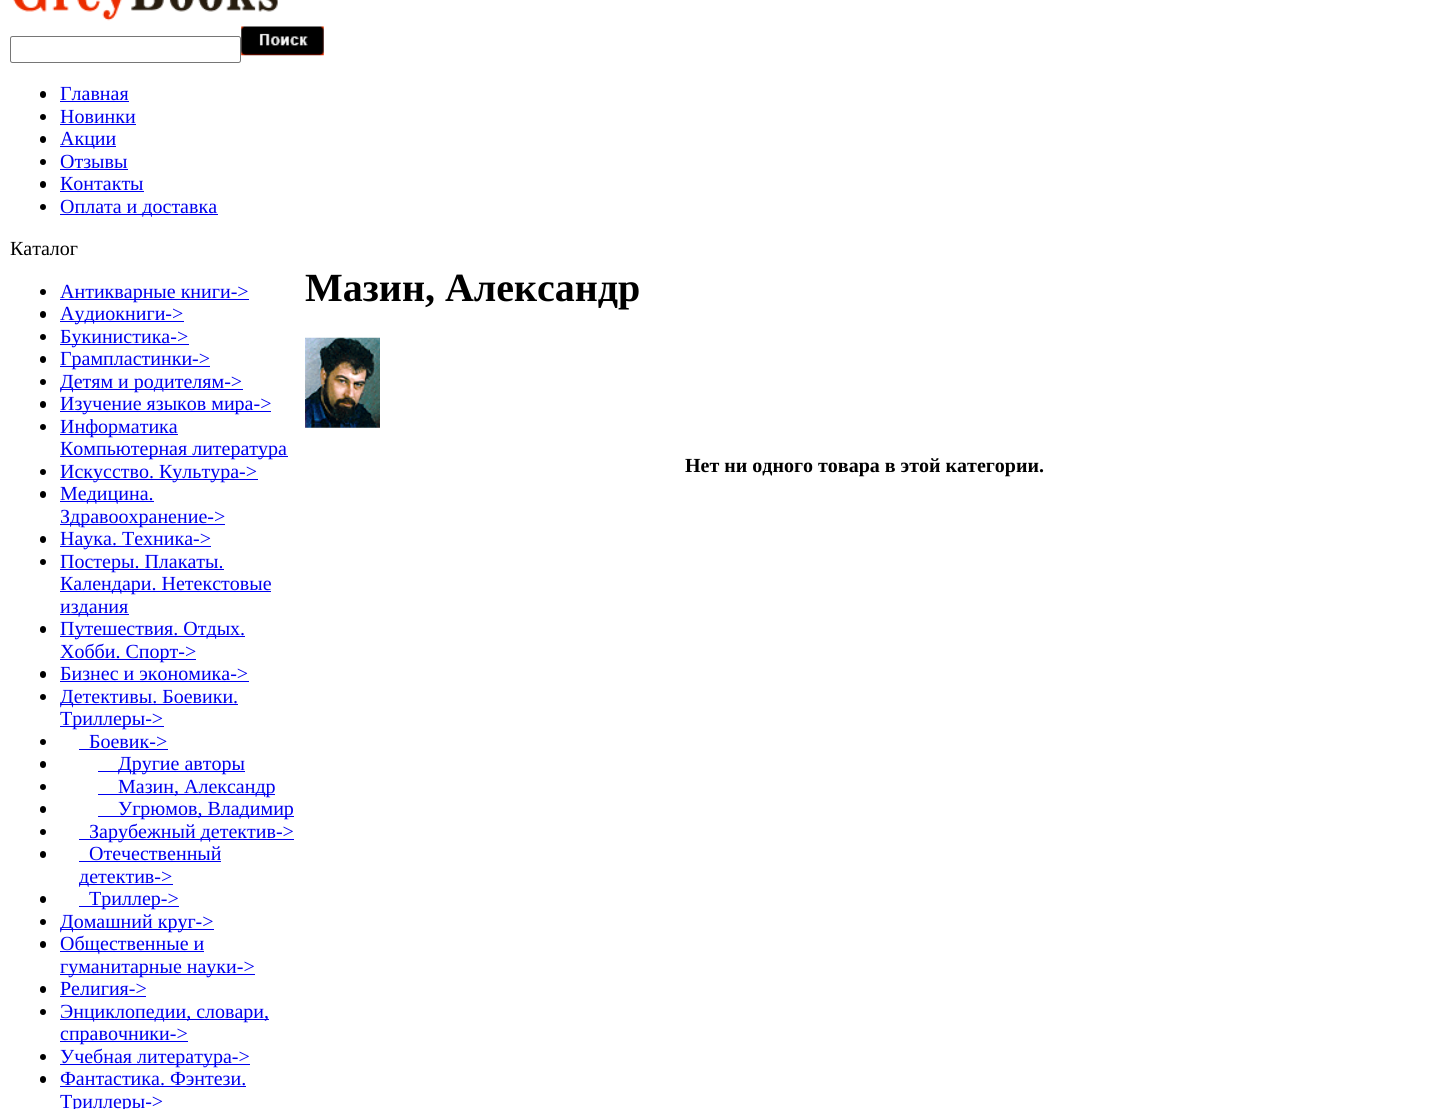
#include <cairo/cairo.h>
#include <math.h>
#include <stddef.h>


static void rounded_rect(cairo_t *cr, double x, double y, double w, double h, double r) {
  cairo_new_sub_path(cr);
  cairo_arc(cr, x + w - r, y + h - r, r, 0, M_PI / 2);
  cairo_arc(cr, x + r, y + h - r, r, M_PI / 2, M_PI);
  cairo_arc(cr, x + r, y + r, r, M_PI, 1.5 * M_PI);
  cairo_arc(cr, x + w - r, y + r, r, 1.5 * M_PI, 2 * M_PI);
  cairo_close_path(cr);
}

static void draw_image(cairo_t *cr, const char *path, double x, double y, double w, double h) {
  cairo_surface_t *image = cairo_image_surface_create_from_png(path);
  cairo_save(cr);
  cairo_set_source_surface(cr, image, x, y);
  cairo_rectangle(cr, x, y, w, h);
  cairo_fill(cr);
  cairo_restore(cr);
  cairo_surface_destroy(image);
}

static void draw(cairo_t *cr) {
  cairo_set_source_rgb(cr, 1, 1, 1);
  cairo_paint(cr);
  draw_image(cr, "images/1.png", 13, 0, 265, 21);
  rounded_rect(cr, 10.5, 36.5, 230, 26, 2);
  cairo_set_source_rgb(cr, 118 / 255.0, 118 / 255.0, 118 / 255.0);
  cairo_set_line_width(cr, 1);
  cairo_stroke(cr);
  draw_image(cr, "images/2.png", 241, 26, 83, 30);
  cairo_set_source_rgb(cr, 0, 0, 0);
  rounded_rect(cr, 40, 91, 6, 7, 3);
  cairo_fill(cr);
  cairo_set_source_rgb(cr, 0, 0, 238 / 255.0);
  cairo_rectangle(cr, 60, 101, 69, 1);
  cairo_fill(cr);
  cairo_set_source_rgb(cr, 0, 0, 0);
  cairo_arc(cr, 43, 117, 3, 0, 2 * M_PI);
  cairo_fill(cr);
  cairo_set_source_rgb(cr, 0, 0, 238 / 255.0);
  cairo_rectangle(cr, 60, 124, 76, 1);
  cairo_fill(cr);
  cairo_set_source_rgb(cr, 0, 0, 0);
  rounded_rect(cr, 40, 136, 6, 7, 3);
  cairo_fill(cr);
  cairo_set_source_rgb(cr, 0, 0, 238 / 255.0);
  cairo_rectangle(cr, 60, 146, 56, 1);
  cairo_fill(cr);
  cairo_set_source_rgb(cr, 0, 0, 0);
  cairo_arc(cr, 43, 162, 3, 0, 2 * M_PI);
  cairo_fill(cr);
  cairo_set_source_rgb(cr, 0, 0, 238 / 255.0);
  cairo_rectangle(cr, 60, 169, 68, 1);
  cairo_fill(cr);
  cairo_set_source_rgb(cr, 0, 0, 0);
  rounded_rect(cr, 40, 181, 6, 7, 3);
  cairo_fill(cr);
  cairo_set_source_rgb(cr, 0, 0, 238 / 255.0);
  cairo_rectangle(cr, 60, 191, 84, 1);
  cairo_fill(cr);
  cairo_set_source_rgb(cr, 0, 0, 0);
  cairo_arc(cr, 43, 207, 3, 0, 2 * M_PI);
  cairo_fill(cr);
  cairo_set_source_rgb(cr, 0, 0, 238 / 255.0);
  cairo_rectangle(cr, 60, 214, 158, 1);
  cairo_fill(cr);
  cairo_set_source_rgb(cr, 0, 0, 0);
  cairo_arc(cr, 43, 292, 3, 0, 2 * M_PI);
  cairo_fill(cr);
  cairo_set_source_rgb(cr, 0, 0, 238 / 255.0);
  cairo_rectangle(cr, 60, 299, 189, 1);
  cairo_fill(cr);
  cairo_set_source_rgb(cr, 0, 0, 0);
  rounded_rect(cr, 40, 311, 6, 7, 3);
  cairo_fill(cr);
  cairo_set_source_rgb(cr, 0, 0, 238 / 255.0);
  cairo_rectangle(cr, 60, 321, 124, 1);
  cairo_fill(cr);
  cairo_set_source_rgb(cr, 0, 0, 0);
  cairo_arc(cr, 43, 337, 3, 0, 2 * M_PI);
  cairo_fill(cr);
  cairo_set_source_rgb(cr, 0, 0, 238 / 255.0);
  cairo_rectangle(cr, 60, 344, 129, 1);
  cairo_fill(cr);
  cairo_set_source_rgb(cr, 0, 0, 0);
  rounded_rect(cr, 40, 356, 6, 7, 3);
  cairo_fill(cr);
  cairo_set_source_rgb(cr, 0, 0, 238 / 255.0);
  cairo_rectangle(cr, 60, 366, 150, 1);
  cairo_fill(cr);
  cairo_set_source_rgb(cr, 0, 0, 0);
  cairo_arc(cr, 43, 382, 3, 0, 2 * M_PI);
  cairo_fill(cr);
  cairo_set_source_rgb(cr, 0, 0, 238 / 255.0);
  cairo_rectangle(cr, 60, 389, 183, 1);
  cairo_fill(cr);
  cairo_set_source_rgb(cr, 0, 0, 0);
  rounded_rect(cr, 40, 401, 6, 7, 3);
  cairo_fill(cr);
  cairo_set_source_rgb(cr, 0, 0, 238 / 255.0);
  cairo_rectangle(cr, 60, 411, 211, 1);
  cairo_fill(cr);
  cairo_set_source_rgb(cr, 0, 0, 0);
  cairo_arc(cr, 43, 427, 3, 0, 2 * M_PI);
  cairo_fill(cr);
  cairo_set_source_rgb(cr, 0, 0, 238 / 255.0);
  cairo_rectangle(cr, 60, 434, 118, 1);
  cairo_fill(cr);
  cairo_rectangle(cr, 60, 456, 228, 1);
  cairo_fill(cr);
  cairo_set_source_rgb(cr, 0, 0, 0);
  cairo_arc(cr, 43, 472, 3, 0, 2 * M_PI);
  cairo_fill(cr);
  cairo_set_source_rgb(cr, 0, 0, 238 / 255.0);
  cairo_rectangle(cr, 60, 479, 198, 1);
  cairo_fill(cr);
  cairo_set_source_rgb(cr, 0, 0, 0);
  rounded_rect(cr, 40, 491, 6, 7, 3);
  cairo_fill(cr);
  cairo_set_source_rgb(cr, 0, 0, 238 / 255.0);
  cairo_rectangle(cr, 60, 501, 94, 1);
  cairo_fill(cr);
  cairo_rectangle(cr, 60, 524, 165, 1);
  cairo_fill(cr);
  cairo_set_source_rgb(cr, 0, 0, 0);
  rounded_rect(cr, 40, 536, 6, 7, 3);
  cairo_fill(cr);
  cairo_set_source_rgb(cr, 0, 0, 238 / 255.0);
  cairo_rectangle(cr, 60, 546, 151, 1);
  cairo_fill(cr);
  cairo_set_source_rgb(cr, 0, 0, 0);
  cairo_arc(cr, 43, 562, 3, 0, 2 * M_PI);
  cairo_fill(cr);
  cairo_set_source_rgb(cr, 0, 0, 238 / 255.0);
  cairo_rectangle(cr, 60, 569, 164, 1);
  cairo_fill(cr);
  cairo_rectangle(cr, 60, 591, 211, 1);
  cairo_fill(cr);
  cairo_rectangle(cr, 60, 614, 69, 1);
  cairo_fill(cr);
  cairo_set_source_rgb(cr, 0, 0, 0);
  rounded_rect(cr, 40, 626, 6, 7, 3);
  cairo_fill(cr);
  cairo_set_source_rgb(cr, 0, 0, 238 / 255.0);
  cairo_rectangle(cr, 60, 636, 185, 1);
  cairo_fill(cr);
  cairo_rectangle(cr, 60, 659, 136, 1);
  cairo_fill(cr);
  cairo_set_source_rgb(cr, 0, 0, 0);
  rounded_rect(cr, 40, 671, 6, 7, 3);
  cairo_fill(cr);
  cairo_set_source_rgb(cr, 0, 0, 238 / 255.0);
  cairo_rectangle(cr, 60, 681, 189, 1);
  cairo_fill(cr);
  cairo_set_source_rgb(cr, 0, 0, 0);
  cairo_arc(cr, 43, 697, 3, 0, 2 * M_PI);
  cairo_fill(cr);
  cairo_set_source_rgb(cr, 0, 0, 238 / 255.0);
  cairo_rectangle(cr, 60, 704, 178, 1);
  cairo_fill(cr);
  cairo_rectangle(cr, 60, 726, 104, 1);
  cairo_fill(cr);
  cairo_set_source_rgb(cr, 0, 0, 0);
  cairo_arc(cr, 43, 742, 3, 0, 2 * M_PI);
  cairo_fill(cr);
  cairo_set_source_rgb(cr, 0, 0, 238 / 255.0);
  cairo_rectangle(cr, 79, 749, 89, 1);
  cairo_fill(cr);
  cairo_set_source_rgb(cr, 0, 0, 0);
  rounded_rect(cr, 40, 761, 6, 7, 3);
  cairo_fill(cr);
  cairo_set_source_rgb(cr, 0, 0, 238 / 255.0);
  cairo_rectangle(cr, 98, 771, 147, 1);
  cairo_fill(cr);
  cairo_set_source_rgb(cr, 0, 0, 0);
  cairo_arc(cr, 43, 787, 3, 0, 2 * M_PI);
  cairo_fill(cr);
  cairo_set_source_rgb(cr, 0, 0, 238 / 255.0);
  cairo_rectangle(cr, 98, 794, 177, 1);
  cairo_fill(cr);
  cairo_set_source_rgb(cr, 0, 0, 0);
  rounded_rect(cr, 40, 806, 6, 7, 3);
  cairo_fill(cr);
  cairo_set_source_rgb(cr, 0, 0, 238 / 255.0);
  cairo_rectangle(cr, 98, 816, 196, 1);
  cairo_fill(cr);
  cairo_set_source_rgb(cr, 0, 0, 0);
  cairo_arc(cr, 43, 832, 3, 0, 2 * M_PI);
  cairo_fill(cr);
  cairo_set_source_rgb(cr, 0, 0, 238 / 255.0);
  cairo_rectangle(cr, 79, 839, 215, 1);
  cairo_fill(cr);
  cairo_set_source_rgb(cr, 0, 0, 0);
  rounded_rect(cr, 40, 851, 6, 7, 3);
  cairo_fill(cr);
  cairo_set_source_rgb(cr, 0, 0, 238 / 255.0);
  cairo_rectangle(cr, 79, 861, 142, 1);
  cairo_fill(cr);
  cairo_rectangle(cr, 79, 884, 94, 1);
  cairo_fill(cr);
  cairo_set_source_rgb(cr, 0, 0, 0);
  rounded_rect(cr, 40, 896, 6, 7, 3);
  cairo_fill(cr);
  cairo_set_source_rgb(cr, 0, 0, 238 / 255.0);
  cairo_rectangle(cr, 79, 906, 100, 1);
  cairo_fill(cr);
  cairo_set_source_rgb(cr, 0, 0, 0);
  cairo_arc(cr, 43, 922, 3, 0, 2 * M_PI);
  cairo_fill(cr);
  cairo_set_source_rgb(cr, 0, 0, 238 / 255.0);
  cairo_rectangle(cr, 60, 929, 154, 1);
  cairo_fill(cr);
  cairo_set_source_rgb(cr, 0, 0, 0);
  rounded_rect(cr, 40, 941, 6, 7, 3);
  cairo_fill(cr);
  cairo_set_source_rgb(cr, 0, 0, 238 / 255.0);
  cairo_rectangle(cr, 60, 951, 144, 1);
  cairo_fill(cr);
  cairo_rectangle(cr, 60, 974, 195, 1);
  cairo_fill(cr);
  cairo_set_source_rgb(cr, 0, 0, 0);
  rounded_rect(cr, 40, 986, 6, 7, 3);
  cairo_fill(cr);
  cairo_set_source_rgb(cr, 0, 0, 238 / 255.0);
  cairo_rectangle(cr, 60, 996, 86, 1);
  cairo_fill(cr);
  cairo_set_source_rgb(cr, 0, 0, 0);
  cairo_arc(cr, 43, 1012, 3, 0, 2 * M_PI);
  cairo_fill(cr);
  cairo_set_source_rgb(cr, 0, 0, 238 / 255.0);
  cairo_rectangle(cr, 60, 1019, 209, 1);
  cairo_fill(cr);
  cairo_rectangle(cr, 60, 1041, 128, 1);
  cairo_fill(cr);
  cairo_set_source_rgb(cr, 0, 0, 0);
  cairo_arc(cr, 43, 1057, 3, 0, 2 * M_PI);
  cairo_fill(cr);
  cairo_set_source_rgb(cr, 0, 0, 238 / 255.0);
  cairo_rectangle(cr, 60, 1064, 190, 1);
  cairo_fill(cr);
  cairo_set_source_rgb(cr, 0, 0, 0);
  rounded_rect(cr, 40, 1076, 6, 7, 3);
  cairo_fill(cr);
  cairo_set_source_rgb(cr, 0, 0, 238 / 255.0);
  cairo_rectangle(cr, 60, 1086, 186, 1);
  cairo_fill(cr);
  draw_image(cr, "images/3.png", 305, 337, 75, 91);
  cairo_select_font_face(cr, "Liberation Serif", CAIRO_FONT_SLANT_NORMAL, CAIRO_FONT_WEIGHT_NORMAL);
  cairo_set_font_size(cr, 20);
  cairo_move_to(cr, 60, 100);
  cairo_show_text(cr, "Главная");
  cairo_move_to(cr, 60, 123);
  cairo_show_text(cr, "Новинки");
  cairo_move_to(cr, 60, 145);
  cairo_show_text(cr, "Акции");
  cairo_move_to(cr, 60, 168);
  cairo_show_text(cr, "Отзывы");
  cairo_move_to(cr, 60, 190);
  cairo_show_text(cr, "Контакты");
  cairo_move_to(cr, 60, 213);
  cairo_show_text(cr, "Оплата и доставка");
  cairo_set_source_rgb(cr, 0, 0, 0);
  cairo_move_to(cr, 10, 255);
  cairo_show_text(cr, "Каталог");
  cairo_set_source_rgb(cr, 0, 0, 238 / 255.0);
  cairo_move_to(cr, 60, 298);
  cairo_show_text(cr, "Антикварные книги->");
  cairo_move_to(cr, 60, 320);
  cairo_show_text(cr, "Аудиокниги->");
  cairo_move_to(cr, 60, 343);
  cairo_show_text(cr, "Букинистика->");
  cairo_move_to(cr, 60, 365);
  cairo_show_text(cr, "Грампластинки->");
  cairo_move_to(cr, 60, 388);
  cairo_show_text(cr, "Детям и родителям->");
  cairo_move_to(cr, 60, 410);
  cairo_show_text(cr, "Изучение языков мира->");
  cairo_move_to(cr, 60, 433);
  cairo_show_text(cr, "Информатика");
  cairo_move_to(cr, 60, 455);
  cairo_show_text(cr, "Компьютерная литература");
  cairo_move_to(cr, 60, 478);
  cairo_show_text(cr, "Искусство. Культура->");
  cairo_move_to(cr, 60, 500);
  cairo_show_text(cr, "Медицина.");
  cairo_move_to(cr, 60, 523);
  cairo_show_text(cr, "Здравоохранение->");
  cairo_move_to(cr, 60, 545);
  cairo_show_text(cr, "Наука. Техника->");
  cairo_move_to(cr, 60, 568);
  cairo_show_text(cr, "Постеры. Плакаты.");
  cairo_move_to(cr, 60, 590);
  cairo_show_text(cr, "Календари. Нетекстовые");
  cairo_move_to(cr, 60, 613);
  cairo_show_text(cr, "издания");
  cairo_move_to(cr, 60, 635);
  cairo_show_text(cr, "Путешествия. Отдых.");
  cairo_move_to(cr, 60, 658);
  cairo_show_text(cr, "Хобби. Спорт->");
  cairo_move_to(cr, 60, 680);
  cairo_show_text(cr, "Бизнес и экономика->");
  cairo_move_to(cr, 60, 703);
  cairo_show_text(cr, "Детективы. Боевики.");
  cairo_move_to(cr, 60, 725);
  cairo_show_text(cr, "Триллеры->");
  cairo_move_to(cr, 89, 748);
  cairo_show_text(cr, "Боевик->");
  cairo_move_to(cr, 118, 770);
  cairo_show_text(cr, "Другие авторы");
  cairo_move_to(cr, 118, 793);
  cairo_show_text(cr, "Мазин, Александр");
  cairo_move_to(cr, 118, 815);
  cairo_show_text(cr, "Угрюмов, Владимир");
  cairo_move_to(cr, 89, 838);
  cairo_show_text(cr, "Зарубежный детектив->");
  cairo_move_to(cr, 89, 860);
  cairo_show_text(cr, "Отечественный");
  cairo_move_to(cr, 79, 883);
  cairo_show_text(cr, "детектив->");
  cairo_move_to(cr, 89, 905);
  cairo_show_text(cr, "Триллер->");
  cairo_move_to(cr, 60, 928);
  cairo_show_text(cr, "Домашний круг->");
  cairo_move_to(cr, 60, 950);
  cairo_show_text(cr, "Общественные и");
  cairo_move_to(cr, 60, 973);
  cairo_show_text(cr, "гуманитарные науки->");
  cairo_move_to(cr, 60, 995);
  cairo_show_text(cr, "Религия->");
  cairo_move_to(cr, 60, 1018);
  cairo_show_text(cr, "Энциклопедии, словари,");
  cairo_move_to(cr, 60, 1040);
  cairo_show_text(cr, "справочники->");
  cairo_move_to(cr, 60, 1063);
  cairo_show_text(cr, "Учебная литература->");
  cairo_move_to(cr, 60, 1085);
  cairo_show_text(cr, "Фантастика. Фэнтези.");
  cairo_move_to(cr, 60, 1108);
  cairo_show_text(cr, "Триллеры->");
  cairo_select_font_face(cr, "Liberation Serif", CAIRO_FONT_SLANT_NORMAL, CAIRO_FONT_WEIGHT_BOLD);
  cairo_set_font_size(cr, 40);
  cairo_set_source_rgb(cr, 0, 0, 0);
  cairo_move_to(cr, 305, 301);
  cairo_show_text(cr, "Мазин, Александр");
  cairo_set_font_size(cr, 20);
  cairo_move_to(cr, 685, 472);
  cairo_show_text(cr, "Нет ни одного товара в этой категории.");
}

int main(void) {
  cairo_surface_t *surface = cairo_image_surface_create(CAIRO_FORMAT_RGB24, 1433, 1109);
  cairo_t *cr = cairo_create(surface);
  cairo_font_options_t *options = cairo_font_options_create();
  cairo_font_options_set_hint_metrics(options, CAIRO_HINT_METRICS_OFF);
  cairo_font_options_set_hint_style(options, CAIRO_HINT_STYLE_NONE);
  cairo_set_font_options(cr, options);
  cairo_set_miter_limit(cr, 4);
  draw(cr);
  cairo_surface_write_to_png(surface, "out.png");
  cairo_font_options_destroy(options);
  cairo_destroy(cr);
  cairo_surface_destroy(surface);
  return 0;
}
